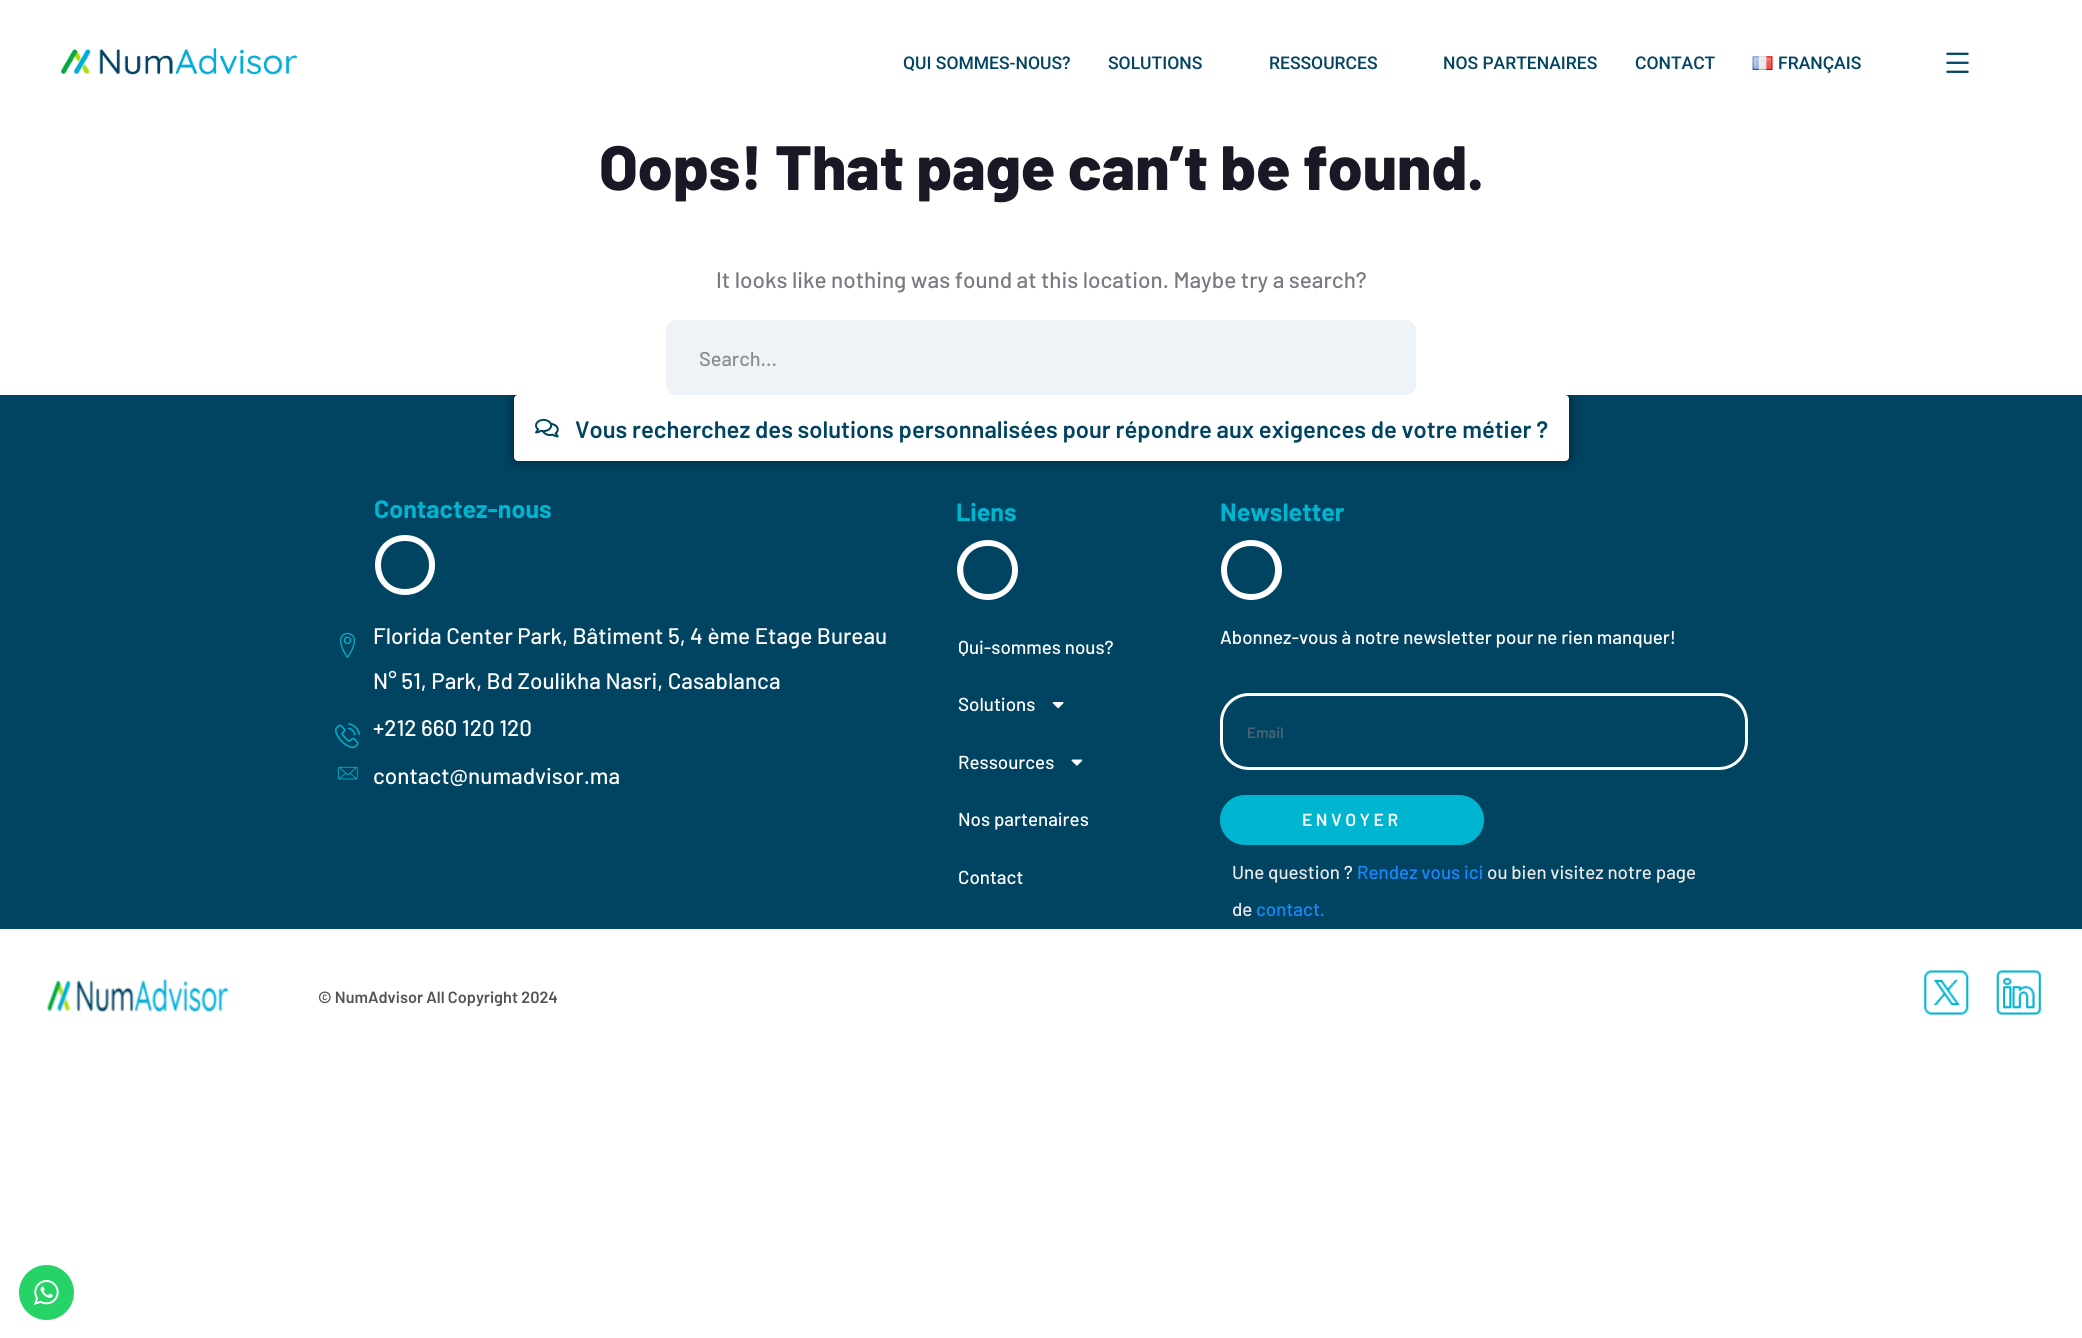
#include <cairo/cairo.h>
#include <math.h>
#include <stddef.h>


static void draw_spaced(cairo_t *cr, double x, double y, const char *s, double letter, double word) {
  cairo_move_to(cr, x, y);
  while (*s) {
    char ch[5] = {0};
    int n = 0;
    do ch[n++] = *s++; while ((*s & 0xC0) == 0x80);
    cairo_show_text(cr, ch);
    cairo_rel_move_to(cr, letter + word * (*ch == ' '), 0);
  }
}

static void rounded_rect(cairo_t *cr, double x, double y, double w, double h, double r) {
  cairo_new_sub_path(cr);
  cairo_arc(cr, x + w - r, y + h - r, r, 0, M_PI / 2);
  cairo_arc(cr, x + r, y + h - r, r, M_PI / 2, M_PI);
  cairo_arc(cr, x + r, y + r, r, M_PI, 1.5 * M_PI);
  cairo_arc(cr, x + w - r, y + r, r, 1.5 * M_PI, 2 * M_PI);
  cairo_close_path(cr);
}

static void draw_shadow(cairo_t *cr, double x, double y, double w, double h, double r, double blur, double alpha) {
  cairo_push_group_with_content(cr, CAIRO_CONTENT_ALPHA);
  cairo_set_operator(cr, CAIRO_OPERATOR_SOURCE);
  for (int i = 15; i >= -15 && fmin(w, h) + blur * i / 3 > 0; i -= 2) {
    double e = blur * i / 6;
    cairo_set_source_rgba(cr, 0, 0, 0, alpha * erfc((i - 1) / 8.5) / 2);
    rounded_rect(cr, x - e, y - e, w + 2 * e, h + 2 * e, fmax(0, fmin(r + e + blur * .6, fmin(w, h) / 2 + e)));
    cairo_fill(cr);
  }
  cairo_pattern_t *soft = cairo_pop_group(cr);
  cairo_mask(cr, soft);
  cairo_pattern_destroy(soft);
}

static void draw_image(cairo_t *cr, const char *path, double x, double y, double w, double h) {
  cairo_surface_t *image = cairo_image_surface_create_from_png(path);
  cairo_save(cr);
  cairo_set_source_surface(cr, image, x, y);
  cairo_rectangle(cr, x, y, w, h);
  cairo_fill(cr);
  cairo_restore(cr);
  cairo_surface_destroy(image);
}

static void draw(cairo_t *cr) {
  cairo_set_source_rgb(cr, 1, 1, 1);
  cairo_paint(cr);
  draw_image(cr, "images/1.png", 61, 47, 237, 28);
  draw_image(cr, "images/2.png", 1752, 56, 21, 14);
  draw_image(cr, "images/3.png", 1946, 52, 23, 21);
  cairo_set_source_rgb(cr, 238 / 255.0, 243 / 255.0, 247 / 255.0);
  rounded_rect(cr, 666.5, 320.5, 749, 74, 9.5);
  cairo_fill_preserve(cr);
  cairo_set_line_width(cr, 1);
  cairo_stroke(cr);
  cairo_set_source_rgb(cr, 0, 68 / 255.0, 98 / 255.0);
  cairo_rectangle(cr, 0, 395, 2082, 534);
  cairo_fill(cr);
  cairo_save(cr);
  cairo_rectangle(cr, 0, 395, 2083, 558);
  cairo_clip(cr);
  cairo_set_source_rgb(cr, 0, 0, 0);
  draw_shadow(cr, 514, 395, 1055, 66, 4, 6, 0.5);
  cairo_restore(cr);
  cairo_set_source_rgb(cr, 1, 1, 1);
  rounded_rect(cr, 514, 395, 1055, 66, 4);
  cairo_fill(cr);
  draw_image(cr, "images/4.png", 535, 418, 24, 20);
  cairo_new_path(cr);
  cairo_move_to(cr, 405, 535);
  cairo_curve_to(cr, 388, 535, 375, 548, 375, 565);
  cairo_curve_to(cr, 375, 582, 388, 595, 405, 595);
  cairo_curve_to(cr, 422, 595, 435, 582, 435, 565);
  cairo_curve_to(cr, 435, 548, 422, 535, 405, 535);
  cairo_close_path(cr);
  cairo_move_to(cr, 405, 589);
  cairo_curve_to(cr, 373, 589, 373, 541, 405, 541);
  cairo_curve_to(cr, 437, 541, 437, 589, 405, 589);
  cairo_close_path(cr);
  cairo_fill(cr);
  draw_image(cr, "images/5.png", 340, 632, 15, 26);
  draw_image(cr, "images/6.png", 335, 723, 25, 26);
  draw_image(cr, "images/7.png", 338, 766, 20, 14);
  cairo_new_path(cr);
  cairo_move_to(cr, 988, 540);
  cairo_curve_to(cr, 971, 540, 957, 553, 957, 570);
  cairo_curve_to(cr, 957, 587, 971, 600, 988, 600);
  cairo_curve_to(cr, 1004, 600, 1018, 587, 1018, 570);
  cairo_curve_to(cr, 1018, 553, 1004, 540, 988, 540);
  cairo_close_path(cr);
  cairo_move_to(cr, 988, 594);
  cairo_curve_to(cr, 955, 594, 955, 546, 988, 546);
  cairo_curve_to(cr, 1020, 546, 1020, 594, 988, 594);
  cairo_close_path(cr);
  cairo_fill(cr);
  draw_image(cr, "images/8.png", 1052, 702, 12, 7);
  draw_image(cr, "images/9.png", 1071, 759, 12, 7);
  cairo_new_path(cr);
  cairo_move_to(cr, 1251, 540);
  cairo_curve_to(cr, 1235, 540, 1221, 553, 1221, 570);
  cairo_curve_to(cr, 1221, 587, 1235, 600, 1251, 600);
  cairo_curve_to(cr, 1268, 600, 1282, 587, 1282, 570);
  cairo_curve_to(cr, 1282, 553, 1268, 540, 1251, 540);
  cairo_close_path(cr);
  cairo_move_to(cr, 1251, 594);
  cairo_curve_to(cr, 1219, 594, 1219, 546, 1251, 546);
  cairo_curve_to(cr, 1283, 546, 1283, 594, 1251, 594);
  cairo_close_path(cr);
  cairo_fill(cr);
  rounded_rect(cr, 1221.5, 694.5, 525, 74, 27.5);
  cairo_set_line_width(cr, 3);
  cairo_stroke(cr);
  cairo_set_source_rgb(cr, 0, 181 / 255.0, 208 / 255.0);
  rounded_rect(cr, 1220, 795, 264, 50, 25);
  cairo_fill(cr);
  draw_image(cr, "images/10.png", 47, 978, 182, 35);
  draw_image(cr, "images/11.png", 1924, 970, 45, 45);
  draw_image(cr, "images/12.png", 1996, 970, 45, 45);
  cairo_set_source_rgb(cr, 37 / 255.0, 211 / 255.0, 102 / 255.0);
  cairo_arc(cr, 46.5, 1292.5, 27.5, 0, 2 * M_PI);
  cairo_fill(cr);
  draw_image(cr, "images/13.png", 34, 1280, 25, 25);
  cairo_select_font_face(cr, "Roboto Medium", CAIRO_FONT_SLANT_NORMAL, CAIRO_FONT_WEIGHT_NORMAL);
  cairo_set_font_size(cr, 17.5);
  cairo_set_source_rgb(cr, 0, 68 / 255.0, 98 / 255.0);
  cairo_move_to(cr, 903, 69);
  cairo_show_text(cr, "QUI SOMMES-NOUS?");
  cairo_move_to(cr, 1108, 69);
  cairo_show_text(cr, "SOLUTIONS");
  cairo_move_to(cr, 1269, 69);
  cairo_show_text(cr, "RESSOURCES");
  cairo_move_to(cr, 1443, 69);
  cairo_show_text(cr, "NOS PARTENAIRES");
  cairo_move_to(cr, 1635, 69);
  cairo_show_text(cr, "CONTACT");
  cairo_move_to(cr, 1778, 69);
  cairo_show_text(cr, "FRANÇAIS");
  cairo_select_font_face(cr, "Barlow ExtraBold", CAIRO_FONT_SLANT_NORMAL, CAIRO_FONT_WEIGHT_NORMAL);
  cairo_set_font_size(cr, 62.5);
  cairo_set_source_rgb(cr, 27 / 255.0, 24 / 255.0, 37 / 255.0);
  cairo_move_to(cr, 599, 190);
  cairo_show_text(cr, "Oops! That page can’t be found.");
  cairo_select_font_face(cr, "Barlow Medium", CAIRO_FONT_SLANT_NORMAL, CAIRO_FONT_WEIGHT_NORMAL);
  cairo_set_font_size(cr, 22.5);
  cairo_set_source_rgb(cr, 123 / 255.0, 121 / 255.0, 129 / 255.0);
  cairo_move_to(cr, 716, 288);
  cairo_show_text(cr, "It looks like nothing was found at this location. Maybe try a search?");
  cairo_set_font_size(cr, 20);
  cairo_set_source_rgb(cr, 136 / 255.0, 140 / 255.0, 144 / 255.0);
  cairo_move_to(cr, 699, 366);
  cairo_show_text(cr, "Search...");
  cairo_select_font_face(cr, "Barlow SemiBold", CAIRO_FONT_SLANT_NORMAL, CAIRO_FONT_WEIGHT_NORMAL);
  cairo_set_font_size(cr, 23.75);
  cairo_set_source_rgb(cr, 0, 68 / 255.0, 98 / 255.0);
  cairo_move_to(cr, 575, 438);
  cairo_show_text(cr, "Vous recherchez des solutions personnalisées pour répondre aux exigences de votre métier ?");
  cairo_select_font_face(cr, "Barlow", CAIRO_FONT_SLANT_NORMAL, CAIRO_FONT_WEIGHT_BOLD);
  cairo_set_font_size(cr, 25);
  cairo_set_source_rgb(cr, 0, 181 / 255.0, 208 / 255.0);
  cairo_move_to(cr, 374, 518);
  cairo_show_text(cr, "Contactez-nous");
  cairo_select_font_face(cr, "Barlow Medium", CAIRO_FONT_SLANT_NORMAL, CAIRO_FONT_WEIGHT_NORMAL);
  cairo_set_font_size(cr, 22.5);
  cairo_set_source_rgb(cr, 1, 1, 1);
  cairo_move_to(cr, 373, 644);
  cairo_show_text(cr, "Florida Center Park, Bâtiment 5, 4 ème Etage Bureau");
  cairo_move_to(cr, 373, 689);
  cairo_show_text(cr, "N° 51, Park, Bd Zoulikha Nasri, Casablanca");
  cairo_move_to(cr, 373, 736);
  cairo_show_text(cr, "+212 660 120 120");
  cairo_move_to(cr, 373, 784);
  cairo_show_text(cr, "contact@numadvisor.ma");
  cairo_select_font_face(cr, "Barlow", CAIRO_FONT_SLANT_NORMAL, CAIRO_FONT_WEIGHT_BOLD);
  cairo_set_font_size(cr, 25);
  cairo_set_source_rgb(cr, 0, 181 / 255.0, 208 / 255.0);
  cairo_move_to(cr, 956, 521);
  cairo_show_text(cr, "Liens");
  cairo_select_font_face(cr, "Barlow Medium", CAIRO_FONT_SLANT_NORMAL, CAIRO_FONT_WEIGHT_NORMAL);
  cairo_set_font_size(cr, 18.75);
  cairo_set_source_rgb(cr, 1, 1, 1);
  cairo_move_to(cr, 958, 654);
  cairo_show_text(cr, "Qui-sommes nous?");
  cairo_move_to(cr, 958, 711);
  cairo_show_text(cr, "Solutions");
  cairo_move_to(cr, 958, 769);
  cairo_show_text(cr, "Ressources");
  cairo_move_to(cr, 958, 826);
  cairo_show_text(cr, "Nos partenaires");
  cairo_move_to(cr, 958, 884);
  cairo_show_text(cr, "Contact");
  cairo_select_font_face(cr, "Barlow", CAIRO_FONT_SLANT_NORMAL, CAIRO_FONT_WEIGHT_BOLD);
  cairo_set_font_size(cr, 25);
  cairo_set_source_rgb(cr, 0, 181 / 255.0, 208 / 255.0);
  cairo_move_to(cr, 1220, 521);
  cairo_show_text(cr, "Newsletter");
  cairo_select_font_face(cr, "Barlow Medium", CAIRO_FONT_SLANT_NORMAL, CAIRO_FONT_WEIGHT_NORMAL);
  cairo_set_font_size(cr, 18.75);
  cairo_set_source_rgb(cr, 1, 1, 1);
  cairo_move_to(cr, 1220, 644);
  cairo_show_text(cr, "Abonnez-vous à notre newsletter pour ne rien manquer!");
  cairo_select_font_face(cr, "Barlow SemiBold", CAIRO_FONT_SLANT_NORMAL, CAIRO_FONT_WEIGHT_NORMAL);
  cairo_set_font_size(cr, 15);
  cairo_set_source_rgb(cr, 74 / 255.0, 100 / 255.0, 117 / 255.0);
  cairo_move_to(cr, 1247, 738);
  cairo_show_text(cr, "Email");
  cairo_set_font_size(cr, 17.5);
  cairo_set_source_rgb(cr, 1, 1, 1);
  draw_spaced(cr, 1302, 826, "ENVOYER", 3.5, 0);
  cairo_select_font_face(cr, "Barlow Medium", CAIRO_FONT_SLANT_NORMAL, CAIRO_FONT_WEIGHT_NORMAL);
  cairo_set_font_size(cr, 18.75);
  cairo_set_source_rgb(cr, 233 / 255.0, 233 / 255.0, 233 / 255.0);
  cairo_move_to(cr, 1232, 879);
  cairo_show_text(cr, "Une question ?");
  cairo_set_source_rgb(cr, 25 / 255.0, 137 / 255.0, 251 / 255.0);
  cairo_move_to(cr, 1357, 879);
  cairo_show_text(cr, "Rendez vous ici");
  cairo_set_source_rgb(cr, 233 / 255.0, 233 / 255.0, 233 / 255.0);
  cairo_move_to(cr, 1487, 879);
  cairo_show_text(cr, "ou bien visitez notre page");
  cairo_move_to(cr, 1232, 916);
  cairo_show_text(cr, "de");
  cairo_set_source_rgb(cr, 25 / 255.0, 137 / 255.0, 251 / 255.0);
  cairo_move_to(cr, 1256, 916);
  cairo_show_text(cr, "contact.");
  cairo_select_font_face(cr, "Barlow SemiBold", CAIRO_FONT_SLANT_NORMAL, CAIRO_FONT_WEIGHT_NORMAL);
  cairo_set_font_size(cr, 16.25);
  cairo_set_source_rgb(cr, 87 / 255.0, 83 / 255.0, 83 / 255.0);
  cairo_move_to(cr, 318, 1003);
  cairo_show_text(cr, "© NumAdvisor All Copyright 2024");
}

int main(void) {
  cairo_surface_t *surface = cairo_image_surface_create(CAIRO_FORMAT_RGB24, 2082, 1338);
  cairo_t *cr = cairo_create(surface);
  cairo_font_options_t *options = cairo_font_options_create();
  cairo_font_options_set_hint_metrics(options, CAIRO_HINT_METRICS_OFF);
  cairo_font_options_set_hint_style(options, CAIRO_HINT_STYLE_NONE);
  cairo_set_font_options(cr, options);
  cairo_set_miter_limit(cr, 4);
  draw(cr);
  cairo_surface_write_to_png(surface, "out.png");
  cairo_font_options_destroy(options);
  cairo_destroy(cr);
  cairo_surface_destroy(surface);
  return 0;
}
